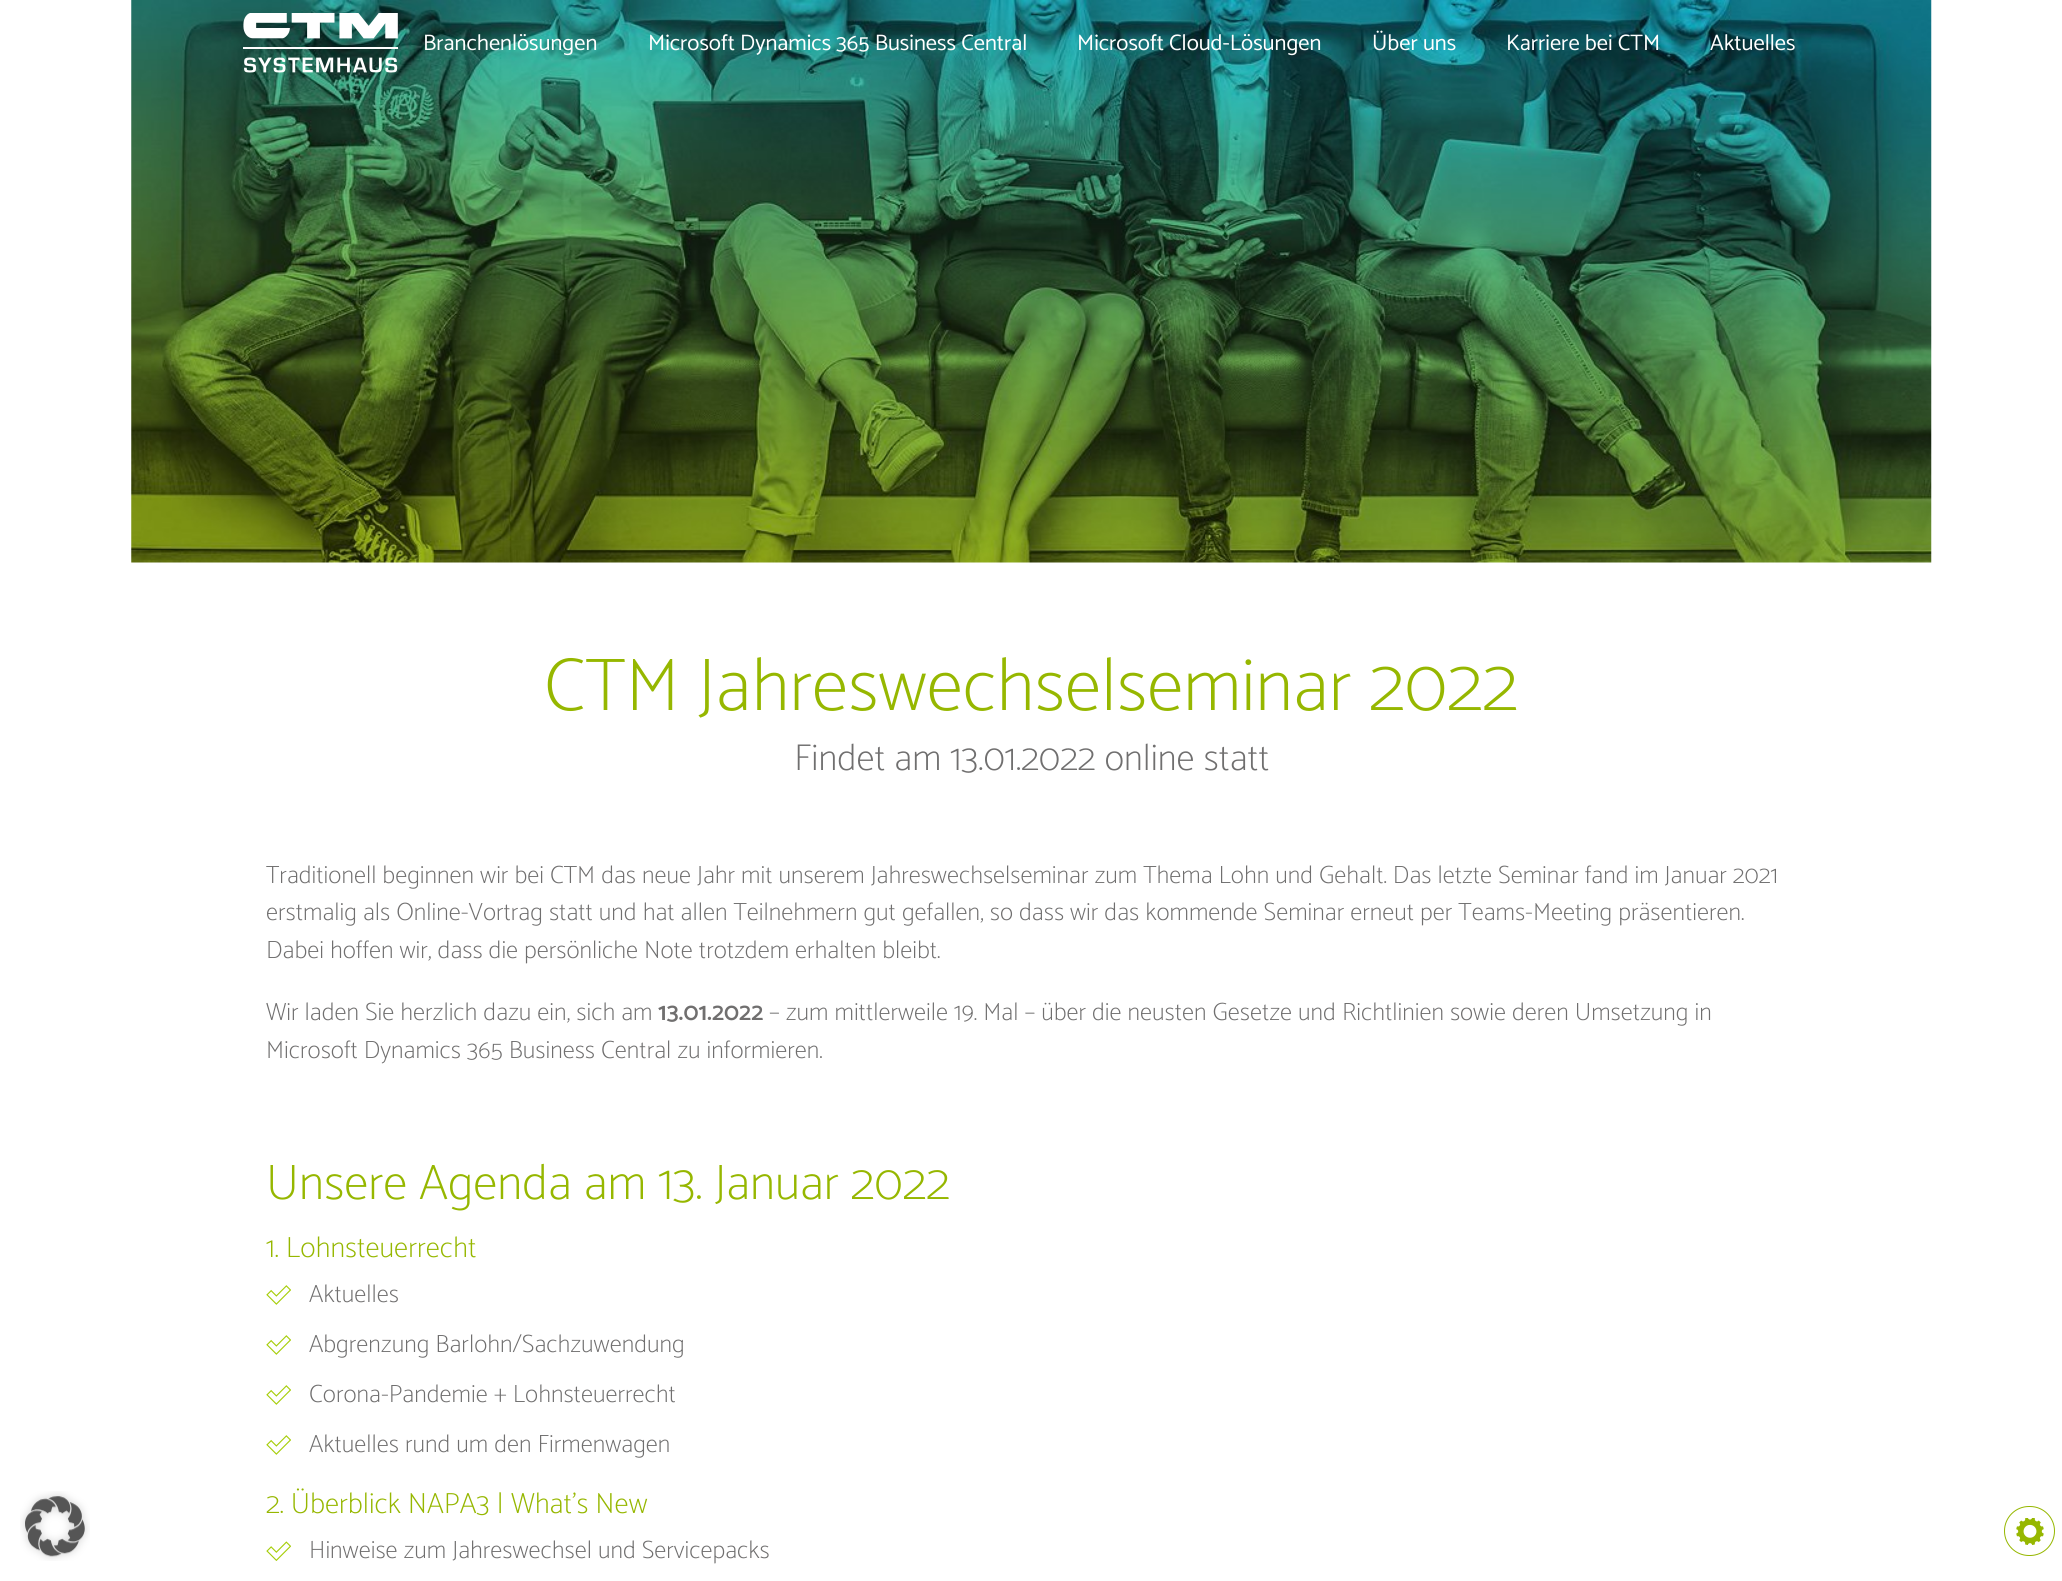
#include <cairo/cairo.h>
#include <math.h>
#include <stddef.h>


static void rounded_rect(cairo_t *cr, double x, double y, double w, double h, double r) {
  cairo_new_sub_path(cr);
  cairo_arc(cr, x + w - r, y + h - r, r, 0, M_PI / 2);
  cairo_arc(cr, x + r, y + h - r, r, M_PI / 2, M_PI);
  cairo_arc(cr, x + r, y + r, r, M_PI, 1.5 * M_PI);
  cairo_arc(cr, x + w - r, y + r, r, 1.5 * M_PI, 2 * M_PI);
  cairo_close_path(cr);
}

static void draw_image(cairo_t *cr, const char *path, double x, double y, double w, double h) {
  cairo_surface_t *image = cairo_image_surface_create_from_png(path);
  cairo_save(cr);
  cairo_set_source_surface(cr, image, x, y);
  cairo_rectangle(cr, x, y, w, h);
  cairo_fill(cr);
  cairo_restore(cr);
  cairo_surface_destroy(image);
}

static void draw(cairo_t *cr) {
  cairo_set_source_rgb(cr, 1, 1, 1);
  cairo_paint(cr);
  draw_image(cr, "images/1.png", 131, 0, 1801, 563);
  draw_image(cr, "images/2.png", 243, 13, 155, 60);
  draw_image(cr, "images/3.png", 20, 1491, 70, 70);
  draw_image(cr, "images/4.png", 266, 1285, 25, 20);
  draw_image(cr, "images/4.png", 266, 1335, 25, 20);
  draw_image(cr, "images/4.png", 266, 1385, 25, 20);
  draw_image(cr, "images/4.png", 266, 1435, 25, 20);
  draw_image(cr, "images/5.png", 266, 1541, 25, 20);
  draw_image(cr, "images/6.png", 2016, 1518, 28, 27);
  rounded_rect(cr, 2004.5, 1506.5, 50, 49, 24.5);
  cairo_set_source_rgb(cr, 150 / 255.0, 183 / 255.0, 0);
  cairo_set_line_width(cr, 1);
  cairo_stroke(cr);
  cairo_select_font_face(cr, "Catamaran", CAIRO_FONT_SLANT_NORMAL, CAIRO_FONT_WEIGHT_NORMAL);
  cairo_set_font_size(cr, 22.5);
  cairo_set_source_rgb(cr, 1, 1, 1);
  cairo_move_to(cr, 423, 50);
  cairo_show_text(cr, "Branchenlösungen");
  cairo_move_to(cr, 648, 50);
  cairo_show_text(cr, "Microsoft Dynamics 365 Business Central");
  cairo_move_to(cr, 1077, 50);
  cairo_show_text(cr, "Microsoft Cloud-Lösungen");
  cairo_move_to(cr, 1372, 50);
  cairo_show_text(cr, "Über uns");
  cairo_move_to(cr, 1506, 50);
  cairo_show_text(cr, "Karriere bei CTM");
  cairo_move_to(cr, 1710, 50);
  cairo_show_text(cr, "Aktuelles");
  cairo_select_font_face(cr, "Catamaran Thin", CAIRO_FONT_SLANT_NORMAL, CAIRO_FONT_WEIGHT_NORMAL);
  cairo_set_font_size(cr, 75);
  cairo_set_source_rgb(cr, 150 / 255.0, 183 / 255.0, 0);
  cairo_move_to(cr, 544, 710);
  cairo_show_text(cr, "CTM Jahreswechselseminar 2022");
  cairo_set_font_size(cr, 37.5);
  cairo_set_source_rgb(cr, 112 / 255.0, 111 / 255.0, 111 / 255.0);
  cairo_move_to(cr, 794, 770);
  cairo_show_text(cr, "Findet am 13.01.2022 online statt");
  cairo_set_font_size(cr, 25);
  cairo_move_to(cr, 266, 883);
  cairo_show_text(cr, "Traditionell beginnen wir bei CTM das neue Jahr mit unserem Jahreswechselseminar zum Thema Lohn und Gehalt. Das letzte Seminar fand im Januar 2021");
  cairo_move_to(cr, 266, 920);
  cairo_show_text(cr, "erstmalig als Online-Vortrag statt und hat allen Teilnehmern gut gefallen, so dass wir das kommende Seminar erneut per Teams-Meeting präsentieren.");
  cairo_move_to(cr, 266, 958);
  cairo_show_text(cr, "Dabei hoffen wir, dass die persönliche Note trotzdem erhalten bleibt.");
  cairo_move_to(cr, 266, 1020);
  cairo_show_text(cr, "Wir laden Sie herzlich dazu ein, sich am");
  cairo_select_font_face(cr, "Catamaran SemiBold", CAIRO_FONT_SLANT_NORMAL, CAIRO_FONT_WEIGHT_NORMAL);
  cairo_move_to(cr, 658, 1020);
  cairo_show_text(cr, "13.01.2022");
  cairo_select_font_face(cr, "Catamaran Thin", CAIRO_FONT_SLANT_NORMAL, CAIRO_FONT_WEIGHT_NORMAL);
  cairo_move_to(cr, 769, 1020);
  cairo_show_text(cr, "– zum mittlerweile 19. Mal – über die neusten Gesetze und Richtlinien sowie deren Umsetzung in");
  cairo_move_to(cr, 266, 1058);
  cairo_show_text(cr, "Microsoft Dynamics 365 Business Central zu informieren.");
  cairo_set_font_size(cr, 50);
  cairo_set_source_rgb(cr, 150 / 255.0, 183 / 255.0, 0);
  cairo_move_to(cr, 266, 1199);
  cairo_show_text(cr, "Unsere Agenda am 13. Januar 2022");
  cairo_set_font_size(cr, 29.25);
  cairo_move_to(cr, 266, 1257);
  cairo_show_text(cr, "1. Lohnsteuerrecht");
  cairo_set_font_size(cr, 25);
  cairo_set_source_rgb(cr, 112 / 255.0, 111 / 255.0, 111 / 255.0);
  cairo_move_to(cr, 309, 1302);
  cairo_show_text(cr, "Aktuelles");
  cairo_move_to(cr, 309, 1352);
  cairo_show_text(cr, "Abgrenzung Barlohn/Sachzuwendung");
  cairo_move_to(cr, 309, 1402);
  cairo_show_text(cr, "Corona-Pandemie + Lohnsteuerrecht");
  cairo_move_to(cr, 309, 1452);
  cairo_show_text(cr, "Aktuelles rund um den Firmenwagen");
  cairo_set_font_size(cr, 29.25);
  cairo_set_source_rgb(cr, 150 / 255.0, 183 / 255.0, 0);
  cairo_move_to(cr, 266, 1513);
  cairo_show_text(cr, "2. Überblick NAPA3 | What’s New");
  cairo_set_font_size(cr, 25);
  cairo_set_source_rgb(cr, 112 / 255.0, 111 / 255.0, 111 / 255.0);
  cairo_move_to(cr, 309, 1558);
  cairo_show_text(cr, "Hinweise zum Jahreswechsel und Servicepacks");
}

int main(void) {
  cairo_surface_t *surface = cairo_image_surface_create(CAIRO_FORMAT_RGB24, 2062, 1581);
  cairo_t *cr = cairo_create(surface);
  cairo_font_options_t *options = cairo_font_options_create();
  cairo_font_options_set_hint_metrics(options, CAIRO_HINT_METRICS_OFF);
  cairo_font_options_set_hint_style(options, CAIRO_HINT_STYLE_NONE);
  cairo_set_font_options(cr, options);
  cairo_set_miter_limit(cr, 4);
  draw(cr);
  cairo_surface_write_to_png(surface, "out.png");
  cairo_font_options_destroy(options);
  cairo_destroy(cr);
  cairo_surface_destroy(surface);
  return 0;
}
